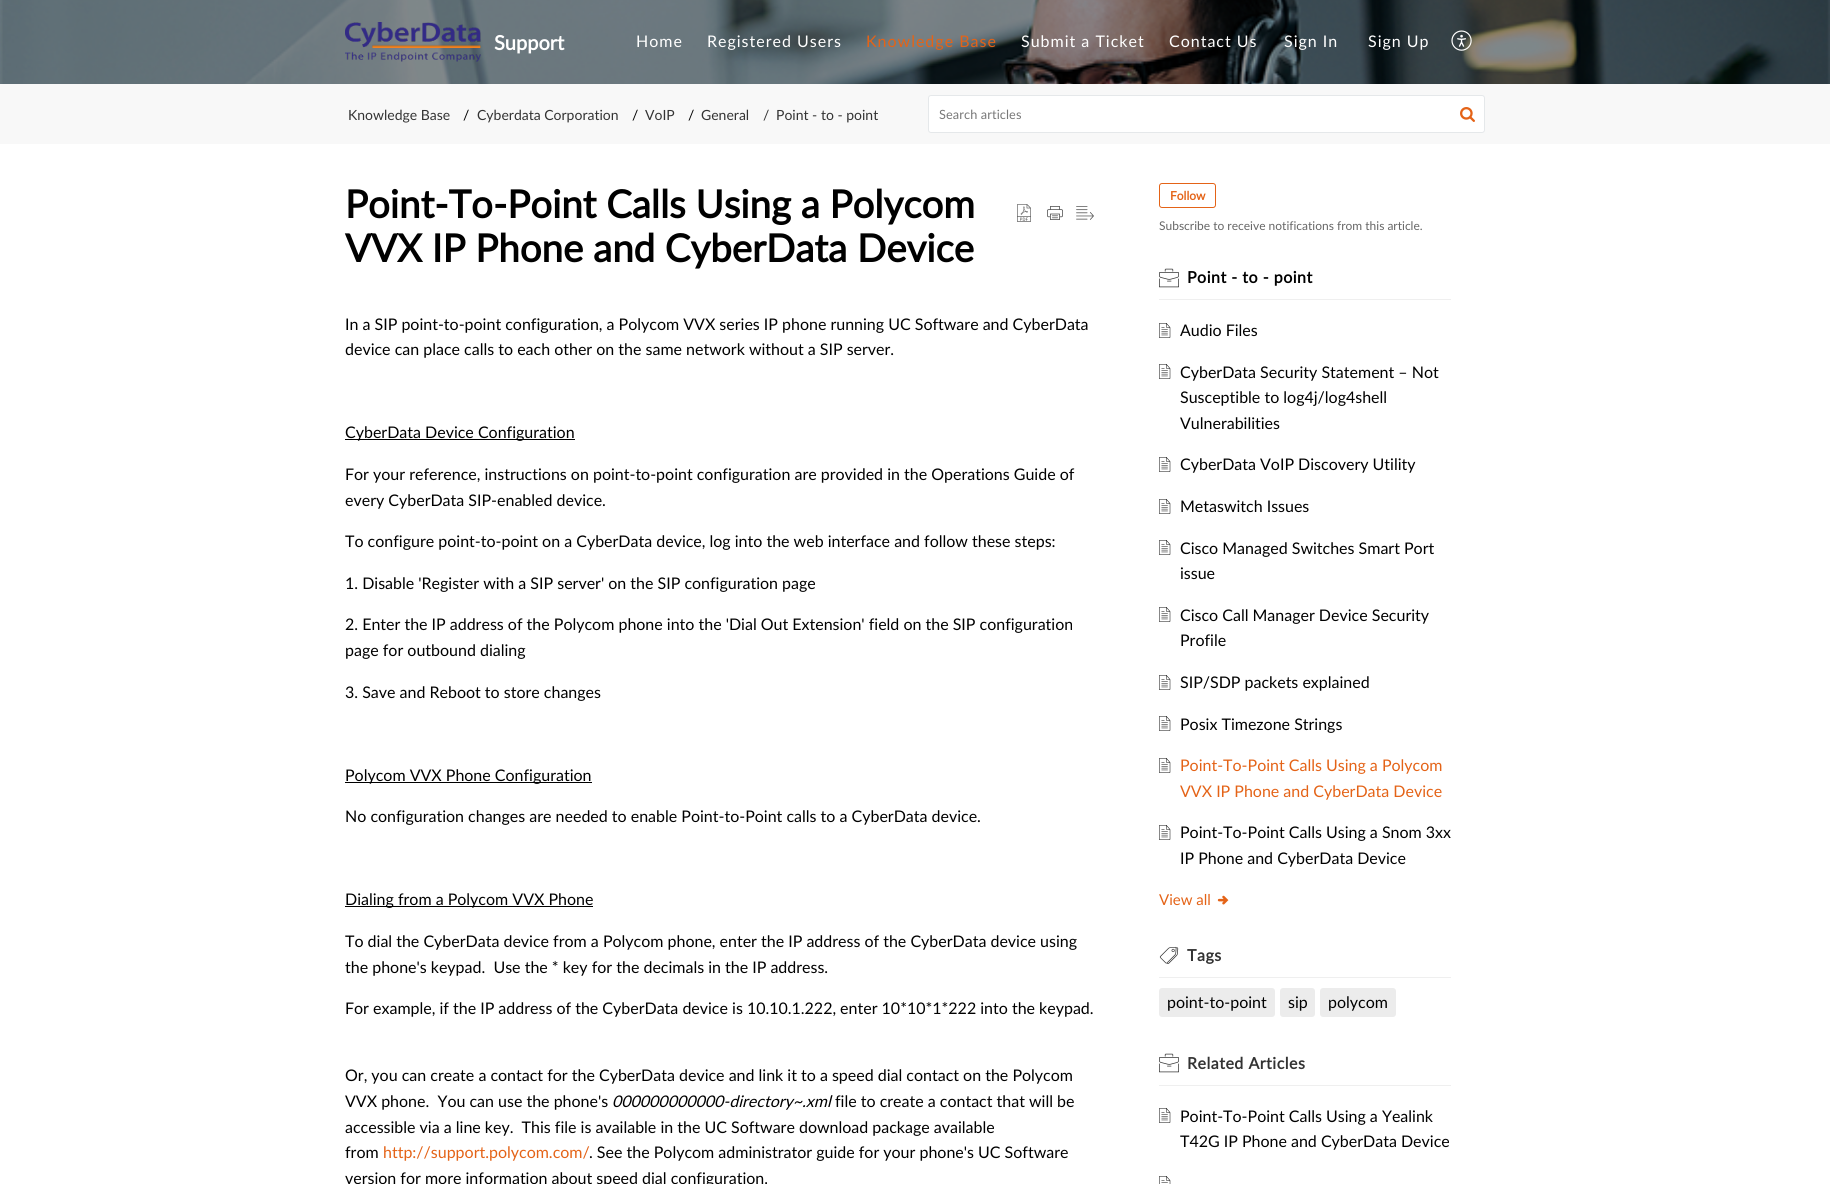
#include <cairo/cairo.h>
#include <math.h>
#include <stddef.h>


static void draw_spaced(cairo_t *cr, double x, double y, const char *s, double letter, double word) {
  cairo_move_to(cr, x, y);
  while (*s) {
    char ch[5] = {0};
    int n = 0;
    do ch[n++] = *s++; while ((*s & 0xC0) == 0x80);
    cairo_show_text(cr, ch);
    cairo_rel_move_to(cr, letter + word * (*ch == ' '), 0);
  }
}

static void rounded_rect(cairo_t *cr, double x, double y, double w, double h, double r) {
  cairo_new_sub_path(cr);
  cairo_arc(cr, x + w - r, y + h - r, r, 0, M_PI / 2);
  cairo_arc(cr, x + r, y + h - r, r, M_PI / 2, M_PI);
  cairo_arc(cr, x + r, y + r, r, M_PI, 1.5 * M_PI);
  cairo_arc(cr, x + w - r, y + r, r, 1.5 * M_PI, 2 * M_PI);
  cairo_close_path(cr);
}

static void draw_image(cairo_t *cr, const char *path, double x, double y, double w, double h) {
  cairo_surface_t *image = cairo_image_surface_create_from_png(path);
  cairo_save(cr);
  cairo_set_source_surface(cr, image, x, y);
  cairo_rectangle(cr, x, y, w, h);
  cairo_fill(cr);
  cairo_restore(cr);
  cairo_surface_destroy(image);
}

static void draw(cairo_t *cr) {
  cairo_set_source_rgb(cr, 1, 1, 1);
  cairo_paint(cr);
  draw_image(cr, "images/1.png", 0, 0, 1830, 84);
  draw_image(cr, "images/2.png", 345, 22, 136, 40);
  draw_image(cr, "images/3.png", 1451, 30, 21, 21);
  cairo_set_source_rgb(cr, 248 / 255.0, 248 / 255.0, 248 / 255.0);
  cairo_rectangle(cr, 0, 84, 1830, 60);
  cairo_fill(cr);
  cairo_set_source_rgb(cr, 1, 1, 1);
  rounded_rect(cr, 928.5, 95.5, 556, 37, 2.5);
  cairo_fill_preserve(cr);
  cairo_set_source_rgb(cr, 229 / 255.0, 232 / 255.0, 234 / 255.0);
  cairo_set_line_width(cr, 1);
  cairo_stroke(cr);
  draw_image(cr, "images/4.png", 1460, 107, 15, 15);
  draw_image(cr, "images/5.png", 1017, 204, 14, 18);
  draw_image(cr, "images/6.png", 1047, 206, 16, 14);
  draw_image(cr, "images/7.png", 1076, 206, 18, 14);
  cairo_set_source_rgb(cr, 0, 0, 0);
  cairo_rectangle(cr, 345, 439, 230, 1);
  cairo_fill(cr);
  cairo_rectangle(cr, 345, 782, 247, 1);
  cairo_fill(cr);
  cairo_rectangle(cr, 345, 906, 248, 1);
  cairo_fill(cr);
  rounded_rect(cr, 1159.5, 183.5, 56, 24, 2.5);
  cairo_set_source_rgb(cr, 228 / 255.0, 99 / 255.0, 23 / 255.0);
  cairo_stroke(cr);
  cairo_set_source_rgb(cr, 239 / 255.0, 239 / 255.0, 239 / 255.0);
  cairo_rectangle(cr, 1159, 299, 292, 1);
  cairo_fill(cr);
  draw_image(cr, "images/8.png", 1159, 268, 20, 20);
  draw_image(cr, "images/9.png", 1159, 323, 12, 15);
  draw_image(cr, "images/9.png", 1159, 364, 12, 15);
  draw_image(cr, "images/9.png", 1159, 457, 12, 15);
  draw_image(cr, "images/9.png", 1159, 499, 12, 15);
  draw_image(cr, "images/9.png", 1159, 540, 12, 15);
  draw_image(cr, "images/9.png", 1159, 607, 12, 15);
  draw_image(cr, "images/9.png", 1159, 675, 12, 15);
  draw_image(cr, "images/9.png", 1159, 716, 12, 15);
  draw_image(cr, "images/9.png", 1159, 758, 12, 15);
  draw_image(cr, "images/9.png", 1159, 825, 12, 15);
  draw_image(cr, "images/10.png", 1217, 895, 12, 10);
  cairo_rectangle(cr, 1159, 977, 292, 1);
  cairo_fill(cr);
  draw_image(cr, "images/11.png", 1159, 946, 20, 18);
  cairo_set_source_rgb(cr, 236 / 255.0, 236 / 255.0, 236 / 255.0);
  rounded_rect(cr, 1159, 988, 116, 29, 3);
  cairo_fill(cr);
  rounded_rect(cr, 1280, 988, 35, 29, 3);
  cairo_fill(cr);
  rounded_rect(cr, 1320, 988, 76, 29, 3);
  cairo_fill(cr);
  cairo_set_source_rgb(cr, 239 / 255.0, 239 / 255.0, 239 / 255.0);
  cairo_rectangle(cr, 1159, 1085, 292, 1);
  cairo_fill(cr);
  draw_image(cr, "images/8.png", 1159, 1053, 20, 20);
  draw_image(cr, "images/9.png", 1159, 1108, 12, 15);
  draw_image(cr, "images/12.png", 1159, 1176, 12, 8);
  cairo_select_font_face(cr, "Lato", CAIRO_FONT_SLANT_NORMAL, CAIRO_FONT_WEIGHT_BOLD);
  cairo_set_font_size(cr, 20);
  cairo_set_source_rgb(cr, 1, 1, 1);
  cairo_move_to(cr, 494, 50);
  cairo_show_text(cr, "Support");
  cairo_select_font_face(cr, "Lato", CAIRO_FONT_SLANT_NORMAL, CAIRO_FONT_WEIGHT_NORMAL);
  cairo_set_font_size(cr, 16);
  draw_spaced(cr, 636, 47, "Home", 1, 0);
  draw_spaced(cr, 707, 47, "Registered Users", 1, 0);
  cairo_set_source_rgb(cr, 228 / 255.0, 99 / 255.0, 23 / 255.0);
  draw_spaced(cr, 866, 47, "Knowledge Base", 1, 0);
  cairo_set_source_rgb(cr, 1, 1, 1);
  draw_spaced(cr, 1021, 47, "Submit a Ticket", 1, 0);
  draw_spaced(cr, 1169, 47, "Contact Us", 1, 0);
  draw_spaced(cr, 1284, 47, "Sign In", 1, 0);
  draw_spaced(cr, 1368, 47, "Sign Up", 1, 0);
  cairo_set_font_size(cr, 14);
  cairo_set_source_rgb(cr, 51 / 255.0, 51 / 255.0, 51 / 255.0);
  cairo_move_to(cr, 348, 120);
  cairo_show_text(cr, "Knowledge Base");
  cairo_set_source_rgb(cr, 0, 0, 0);
  cairo_move_to(cr, 463, 120);
  cairo_show_text(cr, "/");
  cairo_set_source_rgb(cr, 51 / 255.0, 51 / 255.0, 51 / 255.0);
  cairo_move_to(cr, 477, 120);
  cairo_show_text(cr, "Cyberdata Corporation");
  cairo_set_source_rgb(cr, 0, 0, 0);
  cairo_move_to(cr, 632, 120);
  cairo_show_text(cr, "/");
  cairo_set_source_rgb(cr, 51 / 255.0, 51 / 255.0, 51 / 255.0);
  cairo_move_to(cr, 645, 120);
  cairo_show_text(cr, "VoIP");
  cairo_set_source_rgb(cr, 0, 0, 0);
  cairo_move_to(cr, 688, 120);
  cairo_show_text(cr, "/");
  cairo_set_source_rgb(cr, 51 / 255.0, 51 / 255.0, 51 / 255.0);
  cairo_move_to(cr, 701, 120);
  cairo_show_text(cr, "General");
  cairo_move_to(cr, 763, 120);
  cairo_show_text(cr, "/");
  cairo_move_to(cr, 776, 120);
  cairo_show_text(cr, "Point - to - point");
  cairo_set_font_size(cr, 12.75);
  cairo_set_source_rgb(cr, 119 / 255.0, 119 / 255.0, 119 / 255.0);
  draw_spaced(cr, 939, 119, "Search articles", 0.1, 0);
  cairo_select_font_face(cr, "Lato", CAIRO_FONT_SLANT_NORMAL, CAIRO_FONT_WEIGHT_BOLD);
  cairo_set_font_size(cr, 38.4);
  cairo_set_source_rgb(cr, 0, 0, 0);
  cairo_move_to(cr, 345, 218);
  cairo_show_text(cr, "Point-To-Point Calls Using a Polycom");
  cairo_move_to(cr, 345, 262);
  cairo_show_text(cr, "VVX IP Phone and CyberData Device");
  cairo_select_font_face(cr, "Lato", CAIRO_FONT_SLANT_NORMAL, CAIRO_FONT_WEIGHT_NORMAL);
  cairo_set_font_size(cr, 16);
  cairo_move_to(cr, 345, 330);
  cairo_show_text(cr, "In a SIP point-to-point configuration, a Polycom VVX series IP phone running UC Software and CyberData");
  cairo_move_to(cr, 345, 355);
  cairo_show_text(cr, "device can place calls to each other on the same network without a SIP server.");
  cairo_move_to(cr, 345, 438);
  cairo_show_text(cr, "CyberData Device Configuration");
  cairo_move_to(cr, 345, 480);
  cairo_show_text(cr, "For your reference, instructions on point-to-point configuration are provided in the Operations Guide of");
  cairo_move_to(cr, 345, 506);
  cairo_show_text(cr, "every CyberData SIP-enabled device.");
  cairo_move_to(cr, 345, 547);
  cairo_show_text(cr, "To configure point-to-point on a CyberData device, log into the web interface and follow these steps:");
  cairo_move_to(cr, 345, 589);
  cairo_show_text(cr, "1. Disable 'Register with a SIP server' on the SIP configuration page");
  cairo_move_to(cr, 345, 630);
  cairo_show_text(cr, "2. Enter the IP address of the Polycom phone into the 'Dial Out Extension' field on the SIP configuration");
  cairo_move_to(cr, 345, 656);
  cairo_show_text(cr, "page for outbound dialing");
  cairo_move_to(cr, 345, 698);
  cairo_show_text(cr, "3. Save and Reboot to store changes");
  cairo_move_to(cr, 345, 781);
  cairo_show_text(cr, "Polycom VVX Phone Configuration");
  cairo_move_to(cr, 345, 822);
  cairo_show_text(cr, "No configuration changes are needed to enable Point-to-Point calls to a CyberData device.");
  cairo_move_to(cr, 345, 905);
  cairo_show_text(cr, "Dialing from a Polycom VVX Phone");
  cairo_move_to(cr, 345, 947);
  cairo_show_text(cr, "To dial the CyberData device from a Polycom phone, enter the IP address of the CyberData device using");
  cairo_move_to(cr, 345, 973);
  cairo_show_text(cr, "the phone's keypad.  Use the * key for the decimals in the IP address.");
  cairo_move_to(cr, 345, 1014);
  cairo_show_text(cr, "For example, if the IP address of the CyberData device is 10.10.1.222, enter 10*10*1*222 into the keypad.");
  cairo_move_to(cr, 345, 1081);
  cairo_show_text(cr, "Or, you can create a contact for the CyberData device and link it to a speed dial contact on the Polycom");
  cairo_move_to(cr, 345, 1107);
  cairo_show_text(cr, "VVX phone.  You can use the phone's");
  cairo_select_font_face(cr, "Lato", CAIRO_FONT_SLANT_ITALIC, CAIRO_FONT_WEIGHT_NORMAL);
  cairo_move_to(cr, 612, 1107);
  cairo_show_text(cr, "000000000000-directory~.xml");
  cairo_select_font_face(cr, "Lato", CAIRO_FONT_SLANT_NORMAL, CAIRO_FONT_WEIGHT_NORMAL);
  cairo_move_to(cr, 835, 1107);
  cairo_show_text(cr, "file to create a contact that will be");
  cairo_move_to(cr, 345, 1133);
  cairo_show_text(cr, "accessible via a line key.  This file is available in the UC Software download package available");
  cairo_move_to(cr, 345, 1158);
  cairo_show_text(cr, "from");
  cairo_set_source_rgb(cr, 228 / 255.0, 99 / 255.0, 23 / 255.0);
  cairo_move_to(cr, 383, 1158);
  cairo_show_text(cr, "http://support.polycom.com/");
  cairo_set_source_rgb(cr, 0, 0, 0);
  cairo_move_to(cr, 589, 1158);
  cairo_show_text(cr, ". See the Polycom administrator guide for your phone's UC Software");
  cairo_move_to(cr, 345, 1184);
  cairo_show_text(cr, "version for more information about speed dial configuration.");
  cairo_select_font_face(cr, "Lato", CAIRO_FONT_SLANT_NORMAL, CAIRO_FONT_WEIGHT_BOLD);
  cairo_set_font_size(cr, 12);
  cairo_set_source_rgb(cr, 228 / 255.0, 99 / 255.0, 23 / 255.0);
  cairo_move_to(cr, 1170, 200);
  cairo_show_text(cr, "Follow");
  cairo_select_font_face(cr, "Lato", CAIRO_FONT_SLANT_NORMAL, CAIRO_FONT_WEIGHT_NORMAL);
  cairo_set_source_rgb(cr, 102 / 255.0, 102 / 255.0, 102 / 255.0);
  cairo_move_to(cr, 1159, 230);
  cairo_show_text(cr, "Subscribe to receive notifications from this article.");
  cairo_select_font_face(cr, "Lato", CAIRO_FONT_SLANT_NORMAL, CAIRO_FONT_WEIGHT_BOLD);
  cairo_set_font_size(cr, 16);
  cairo_set_source_rgb(cr, 0, 0, 0);
  draw_spaced(cr, 1187, 283, "Point - to - point", 0.5, 0);
  cairo_select_font_face(cr, "Lato", CAIRO_FONT_SLANT_NORMAL, CAIRO_FONT_WEIGHT_NORMAL);
  cairo_move_to(cr, 1180, 336);
  cairo_show_text(cr, "Audio Files");
  cairo_move_to(cr, 1180, 378);
  cairo_show_text(cr, "CyberData Security Statement – Not");
  cairo_move_to(cr, 1180, 403);
  cairo_show_text(cr, "Susceptible to log4j/log4shell");
  cairo_move_to(cr, 1180, 429);
  cairo_show_text(cr, "Vulnerabilities");
  cairo_move_to(cr, 1180, 470);
  cairo_show_text(cr, "CyberData VoIP Discovery Utility");
  cairo_move_to(cr, 1180, 512);
  cairo_show_text(cr, "Metaswitch Issues");
  cairo_move_to(cr, 1180, 554);
  cairo_show_text(cr, "Cisco Managed Switches Smart Port");
  cairo_move_to(cr, 1180, 579);
  cairo_show_text(cr, "issue");
  cairo_move_to(cr, 1180, 621);
  cairo_show_text(cr, "Cisco Call Manager Device Security");
  cairo_move_to(cr, 1180, 646);
  cairo_show_text(cr, "Profile");
  cairo_move_to(cr, 1180, 688);
  cairo_show_text(cr, "SIP/SDP packets explained");
  cairo_move_to(cr, 1180, 730);
  cairo_show_text(cr, "Posix Timezone Strings");
  cairo_set_source_rgb(cr, 228 / 255.0, 99 / 255.0, 23 / 255.0);
  cairo_move_to(cr, 1180, 771);
  cairo_show_text(cr, "Point-To-Point Calls Using a Polycom");
  cairo_move_to(cr, 1180, 797);
  cairo_show_text(cr, "VVX IP Phone and CyberData Device");
  cairo_set_source_rgb(cr, 0, 0, 0);
  cairo_move_to(cr, 1180, 838);
  cairo_show_text(cr, "Point-To-Point Calls Using a Snom 3xx");
  cairo_move_to(cr, 1180, 864);
  cairo_show_text(cr, "IP Phone and CyberData Device");
  cairo_set_font_size(cr, 15);
  cairo_set_source_rgb(cr, 228 / 255.0, 99 / 255.0, 23 / 255.0);
  cairo_move_to(cr, 1159, 905);
  cairo_show_text(cr, "View all");
  cairo_select_font_face(cr, "Lato", CAIRO_FONT_SLANT_NORMAL, CAIRO_FONT_WEIGHT_BOLD);
  cairo_set_font_size(cr, 16);
  cairo_set_source_rgb(cr, 51 / 255.0, 51 / 255.0, 51 / 255.0);
  draw_spaced(cr, 1187, 961, "Tags", 0.5, 0);
  cairo_select_font_face(cr, "Lato", CAIRO_FONT_SLANT_NORMAL, CAIRO_FONT_WEIGHT_NORMAL);
  cairo_set_source_rgb(cr, 0, 0, 0);
  cairo_move_to(cr, 1167, 1008);
  cairo_show_text(cr, "point-to-point");
  cairo_move_to(cr, 1288, 1008);
  cairo_show_text(cr, "sip");
  cairo_move_to(cr, 1328, 1008);
  cairo_show_text(cr, "polycom");
  cairo_select_font_face(cr, "Lato", CAIRO_FONT_SLANT_NORMAL, CAIRO_FONT_WEIGHT_BOLD);
  cairo_set_source_rgb(cr, 51 / 255.0, 51 / 255.0, 51 / 255.0);
  draw_spaced(cr, 1187, 1069, "Related Articles", 0.5, 0);
  cairo_select_font_face(cr, "Lato", CAIRO_FONT_SLANT_NORMAL, CAIRO_FONT_WEIGHT_NORMAL);
  cairo_set_source_rgb(cr, 0, 0, 0);
  cairo_move_to(cr, 1180, 1122);
  cairo_show_text(cr, "Point-To-Point Calls Using a Yealink");
  cairo_move_to(cr, 1180, 1147);
  cairo_show_text(cr, "T42G IP Phone and CyberData Device");
}

int main(void) {
  cairo_surface_t *surface = cairo_image_surface_create(CAIRO_FORMAT_RGB24, 1830, 1184);
  cairo_t *cr = cairo_create(surface);
  cairo_font_options_t *options = cairo_font_options_create();
  cairo_font_options_set_hint_metrics(options, CAIRO_HINT_METRICS_OFF);
  cairo_font_options_set_hint_style(options, CAIRO_HINT_STYLE_NONE);
  cairo_set_font_options(cr, options);
  cairo_set_miter_limit(cr, 4);
  draw(cr);
  cairo_surface_write_to_png(surface, "out.png");
  cairo_font_options_destroy(options);
  cairo_destroy(cr);
  cairo_surface_destroy(surface);
  return 0;
}
